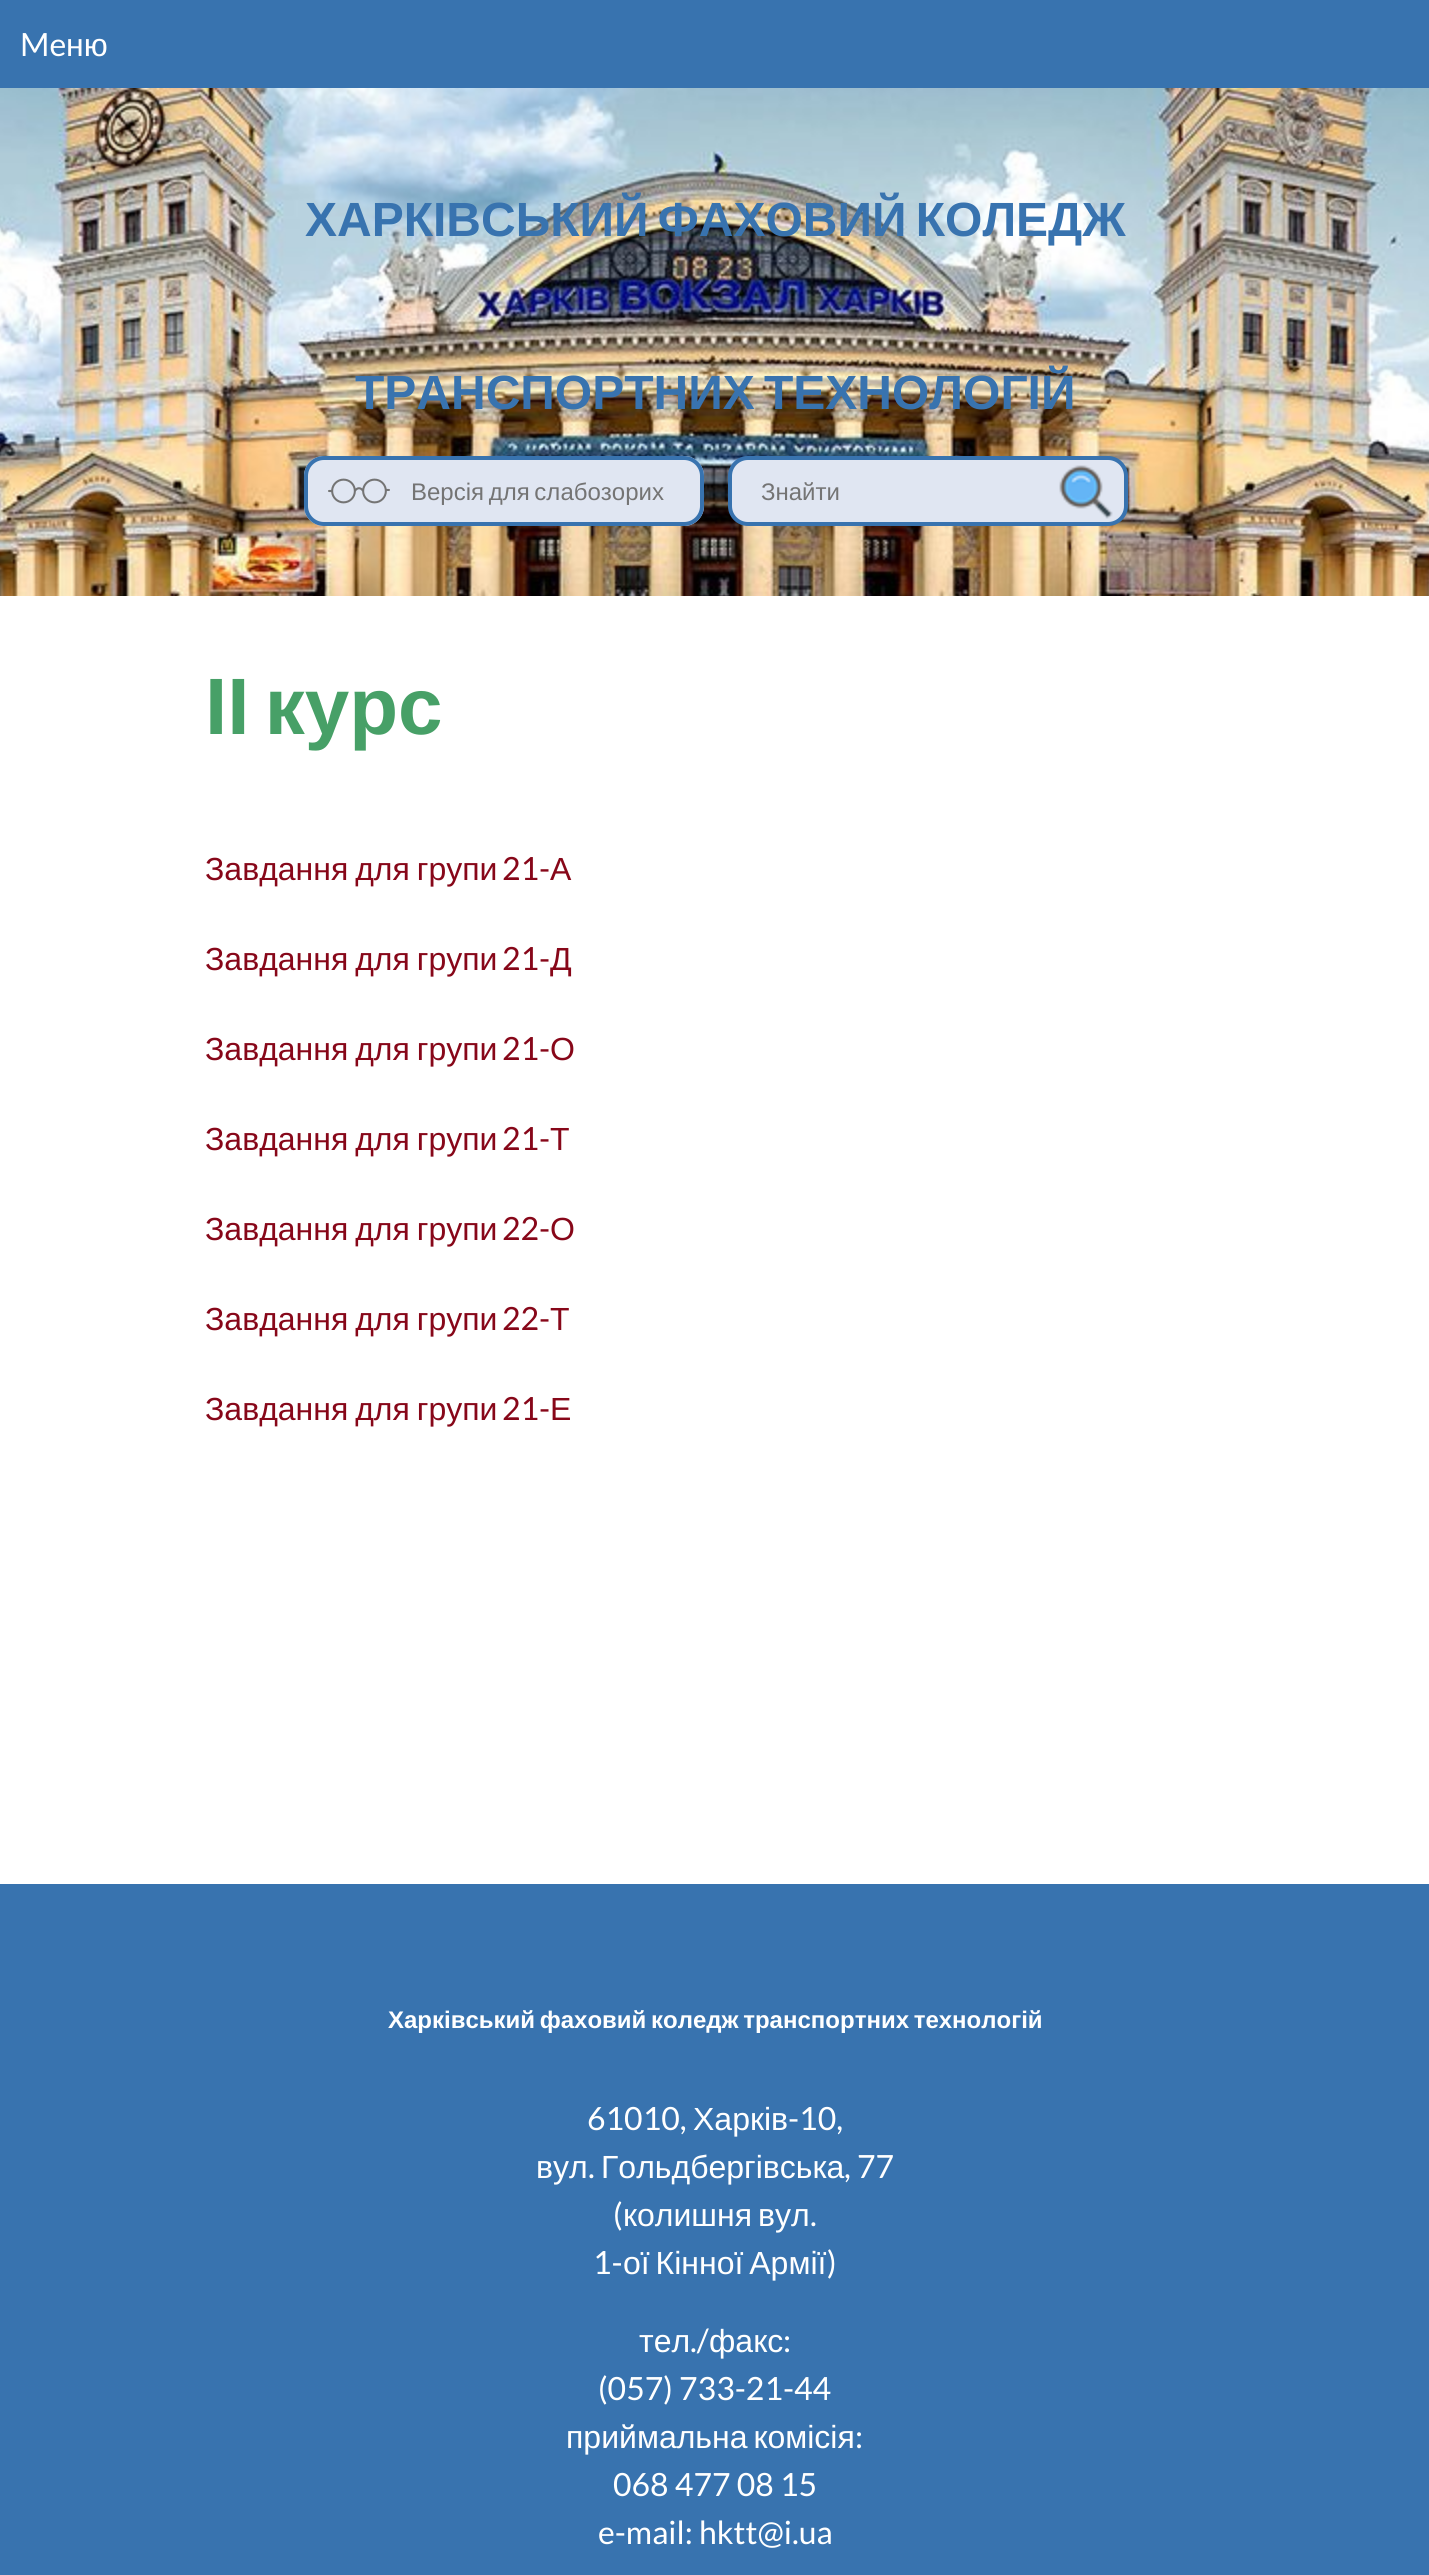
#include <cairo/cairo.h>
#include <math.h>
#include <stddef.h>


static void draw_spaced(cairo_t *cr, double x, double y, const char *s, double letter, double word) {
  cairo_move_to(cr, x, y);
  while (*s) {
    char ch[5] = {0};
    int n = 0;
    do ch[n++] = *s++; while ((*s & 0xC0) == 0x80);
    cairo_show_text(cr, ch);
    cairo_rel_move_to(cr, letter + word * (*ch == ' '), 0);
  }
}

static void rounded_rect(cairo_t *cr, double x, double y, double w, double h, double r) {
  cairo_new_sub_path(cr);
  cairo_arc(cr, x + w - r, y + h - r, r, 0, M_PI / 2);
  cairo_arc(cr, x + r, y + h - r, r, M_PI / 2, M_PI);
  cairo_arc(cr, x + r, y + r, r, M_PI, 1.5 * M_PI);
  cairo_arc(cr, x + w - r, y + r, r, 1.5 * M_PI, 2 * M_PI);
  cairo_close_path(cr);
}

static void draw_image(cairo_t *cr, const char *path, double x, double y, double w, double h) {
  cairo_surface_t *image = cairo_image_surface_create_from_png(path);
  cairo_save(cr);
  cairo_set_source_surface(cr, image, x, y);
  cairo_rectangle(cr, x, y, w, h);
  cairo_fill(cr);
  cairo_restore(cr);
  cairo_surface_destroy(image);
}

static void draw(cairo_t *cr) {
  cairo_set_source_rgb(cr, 1, 1, 1);
  cairo_paint(cr);
  cairo_set_source_rgb(cr, 56 / 255.0, 115 / 255.0, 175 / 255.0);
  cairo_rectangle(cr, 0, 0, 1429, 88);
  cairo_fill(cr);
  draw_image(cr, "images/1.png", 0, 88, 1429, 508);
  cairo_set_source_rgb(cr, 224 / 255.0, 230 / 255.0, 242 / 255.0);
  rounded_rect(cr, 304, 456, 400, 70, 20);
  cairo_fill(cr);
  draw_image(cr, "images/2.png", 328, 478, 62, 26);
  rounded_rect(cr, 306, 458, 396, 66, 18);
  cairo_set_source_rgb(cr, 56 / 255.0, 115 / 255.0, 175 / 255.0);
  cairo_set_line_width(cr, 4);
  cairo_stroke(cr);
  cairo_set_source_rgb(cr, 224 / 255.0, 230 / 255.0, 242 / 255.0);
  rounded_rect(cr, 730, 458, 396, 66, 18);
  cairo_fill_preserve(cr);
  cairo_set_source_rgb(cr, 56 / 255.0, 115 / 255.0, 175 / 255.0);
  cairo_stroke(cr);
  draw_image(cr, "images/3.png", 1059, 465, 54, 54);
  cairo_rectangle(cr, 0, 1884, 1429, 691);
  cairo_fill(cr);
  cairo_select_font_face(cr, "Lato", CAIRO_FONT_SLANT_NORMAL, CAIRO_FONT_WEIGHT_NORMAL);
  cairo_set_font_size(cr, 32);
  cairo_set_source_rgb(cr, 1, 1, 1);
  cairo_move_to(cr, 20, 56);
  cairo_show_text(cr, "Me");
  cairo_select_font_face(cr, "Liberation Sans", CAIRO_FONT_SLANT_NORMAL, CAIRO_FONT_WEIGHT_NORMAL);
  cairo_move_to(cr, 66, 56);
  cairo_show_text(cr, "ню");
  cairo_select_font_face(cr, "Liberation Sans", CAIRO_FONT_SLANT_NORMAL, CAIRO_FONT_WEIGHT_BOLD);
  cairo_set_font_size(cr, 48);
  cairo_set_source_rgb(cr, 56 / 255.0, 115 / 255.0, 175 / 255.0);
  draw_spaced(cr, 305, 236, "ХАРКІВСЬКИЙ ФАХОВИЙ КОЛЕДЖ", 0, -4);
  draw_spaced(cr, 355, 409, "ТРАНСПОРТНИХ ТЕХНОЛОГІЙ", 0, -4);
  cairo_select_font_face(cr, "Liberation Sans", CAIRO_FONT_SLANT_NORMAL, CAIRO_FONT_WEIGHT_NORMAL);
  cairo_set_font_size(cr, 24);
  cairo_set_source_rgb(cr, 116 / 255.0, 116 / 255.0, 116 / 255.0);
  draw_spaced(cr, 411, 500, "Версія для слабозорих", 0, -2);
  cairo_move_to(cr, 761, 500);
  cairo_show_text(cr, "Знайти");
  cairo_select_font_face(cr, "Liberation Sans", CAIRO_FONT_SLANT_NORMAL, CAIRO_FONT_WEIGHT_BOLD);
  cairo_set_font_size(cr, 80);
  cairo_set_source_rgb(cr, 71 / 255.0, 160 / 255.0, 103 / 255.0);
  draw_spaced(cr, 205, 734, "ІІ курс", 0, -7);
  cairo_select_font_face(cr, "Liberation Sans", CAIRO_FONT_SLANT_NORMAL, CAIRO_FONT_WEIGHT_NORMAL);
  cairo_set_font_size(cr, 32);
  cairo_set_source_rgb(cr, 135 / 255.0, 7 / 255.0, 25 / 255.0);
  draw_spaced(cr, 205, 880, "Завдання для групи", 0, -2);
  cairo_select_font_face(cr, "Lato", CAIRO_FONT_SLANT_NORMAL, CAIRO_FONT_WEIGHT_NORMAL);
  cairo_move_to(cr, 502, 880);
  cairo_show_text(cr, "21-");
  cairo_select_font_face(cr, "Liberation Sans", CAIRO_FONT_SLANT_NORMAL, CAIRO_FONT_WEIGHT_NORMAL);
  cairo_move_to(cr, 550, 880);
  cairo_show_text(cr, "А");
  draw_spaced(cr, 205, 970, "Завдання для групи", 0, -2);
  cairo_select_font_face(cr, "Lato", CAIRO_FONT_SLANT_NORMAL, CAIRO_FONT_WEIGHT_NORMAL);
  cairo_move_to(cr, 502, 970);
  cairo_show_text(cr, "21-");
  cairo_select_font_face(cr, "Liberation Sans", CAIRO_FONT_SLANT_NORMAL, CAIRO_FONT_WEIGHT_NORMAL);
  cairo_move_to(cr, 550, 970);
  cairo_show_text(cr, "Д");
  draw_spaced(cr, 205, 1060, "Завдання для групи", 0, -2);
  cairo_select_font_face(cr, "Lato", CAIRO_FONT_SLANT_NORMAL, CAIRO_FONT_WEIGHT_NORMAL);
  cairo_move_to(cr, 502, 1060);
  cairo_show_text(cr, "21-");
  cairo_select_font_face(cr, "Liberation Sans", CAIRO_FONT_SLANT_NORMAL, CAIRO_FONT_WEIGHT_NORMAL);
  cairo_move_to(cr, 550, 1060);
  cairo_show_text(cr, "О");
  draw_spaced(cr, 205, 1150, "Завдання для групи", 0, -2);
  cairo_select_font_face(cr, "Lato", CAIRO_FONT_SLANT_NORMAL, CAIRO_FONT_WEIGHT_NORMAL);
  cairo_move_to(cr, 502, 1150);
  cairo_show_text(cr, "21-");
  cairo_select_font_face(cr, "Liberation Sans", CAIRO_FONT_SLANT_NORMAL, CAIRO_FONT_WEIGHT_NORMAL);
  cairo_move_to(cr, 550, 1150);
  cairo_show_text(cr, "Т");
  draw_spaced(cr, 205, 1240, "Завдання для групи", 0, -2);
  cairo_select_font_face(cr, "Lato", CAIRO_FONT_SLANT_NORMAL, CAIRO_FONT_WEIGHT_NORMAL);
  cairo_move_to(cr, 502, 1240);
  cairo_show_text(cr, "22-");
  cairo_select_font_face(cr, "Liberation Sans", CAIRO_FONT_SLANT_NORMAL, CAIRO_FONT_WEIGHT_NORMAL);
  cairo_move_to(cr, 550, 1240);
  cairo_show_text(cr, "О");
  draw_spaced(cr, 205, 1330, "Завдання для групи", 0, -2);
  cairo_select_font_face(cr, "Lato", CAIRO_FONT_SLANT_NORMAL, CAIRO_FONT_WEIGHT_NORMAL);
  cairo_move_to(cr, 502, 1330);
  cairo_show_text(cr, "22-");
  cairo_select_font_face(cr, "Liberation Sans", CAIRO_FONT_SLANT_NORMAL, CAIRO_FONT_WEIGHT_NORMAL);
  cairo_move_to(cr, 550, 1330);
  cairo_show_text(cr, "Т");
  draw_spaced(cr, 205, 1420, "Завдання для групи", 0, -2);
  cairo_select_font_face(cr, "Lato", CAIRO_FONT_SLANT_NORMAL, CAIRO_FONT_WEIGHT_NORMAL);
  cairo_move_to(cr, 502, 1420);
  cairo_show_text(cr, "21-");
  cairo_select_font_face(cr, "Liberation Sans", CAIRO_FONT_SLANT_NORMAL, CAIRO_FONT_WEIGHT_NORMAL);
  cairo_move_to(cr, 550, 1420);
  cairo_show_text(cr, "Е");
  cairo_select_font_face(cr, "Liberation Sans", CAIRO_FONT_SLANT_NORMAL, CAIRO_FONT_WEIGHT_BOLD);
  cairo_set_font_size(cr, 24);
  cairo_set_source_rgb(cr, 1, 1, 1);
  draw_spaced(cr, 388, 2028, "Харківський фаховий коледж транспортних технологій", 0, -2);
  cairo_select_font_face(cr, "Lato", CAIRO_FONT_SLANT_NORMAL, CAIRO_FONT_WEIGHT_NORMAL);
  cairo_set_font_size(cr, 32);
  cairo_move_to(cr, 587, 2130);
  cairo_show_text(cr, "61010,");
  cairo_select_font_face(cr, "Liberation Sans", CAIRO_FONT_SLANT_NORMAL, CAIRO_FONT_WEIGHT_NORMAL);
  cairo_move_to(cr, 693, 2130);
  cairo_show_text(cr, "Харків");
  cairo_select_font_face(cr, "Lato", CAIRO_FONT_SLANT_NORMAL, CAIRO_FONT_WEIGHT_NORMAL);
  cairo_move_to(cr, 788, 2130);
  cairo_show_text(cr, "-10,");
  cairo_select_font_face(cr, "Liberation Sans", CAIRO_FONT_SLANT_NORMAL, CAIRO_FONT_WEIGHT_NORMAL);
  cairo_move_to(cr, 536, 2178);
  cairo_show_text(cr, "вул");
  cairo_select_font_face(cr, "Lato", CAIRO_FONT_SLANT_NORMAL, CAIRO_FONT_WEIGHT_NORMAL);
  cairo_move_to(cr, 588, 2178);
  cairo_show_text(cr, ".");
  cairo_select_font_face(cr, "Liberation Sans", CAIRO_FONT_SLANT_NORMAL, CAIRO_FONT_WEIGHT_NORMAL);
  cairo_move_to(cr, 601, 2178);
  cairo_show_text(cr, "Гольдбергівська");
  cairo_select_font_face(cr, "Lato", CAIRO_FONT_SLANT_NORMAL, CAIRO_FONT_WEIGHT_NORMAL);
  cairo_move_to(cr, 844, 2178);
  cairo_show_text(cr, ", 77");
  cairo_move_to(cr, 613, 2226);
  cairo_show_text(cr, "(");
  cairo_select_font_face(cr, "Liberation Sans", CAIRO_FONT_SLANT_NORMAL, CAIRO_FONT_WEIGHT_NORMAL);
  draw_spaced(cr, 623, 2226, "колишня вул", 0, -3);
  cairo_select_font_face(cr, "Lato", CAIRO_FONT_SLANT_NORMAL, CAIRO_FONT_WEIGHT_NORMAL);
  cairo_move_to(cr, 810, 2226);
  cairo_show_text(cr, ".");
  cairo_move_to(cr, 593, 2274);
  cairo_show_text(cr, "1-");
  cairo_select_font_face(cr, "Liberation Sans", CAIRO_FONT_SLANT_NORMAL, CAIRO_FONT_WEIGHT_NORMAL);
  draw_spaced(cr, 623, 2274, "ої Кінної Армії", 0, -3);
  cairo_select_font_face(cr, "Lato", CAIRO_FONT_SLANT_NORMAL, CAIRO_FONT_WEIGHT_NORMAL);
  cairo_move_to(cr, 827, 2274);
  cairo_show_text(cr, ")");
  cairo_select_font_face(cr, "Liberation Sans", CAIRO_FONT_SLANT_NORMAL, CAIRO_FONT_WEIGHT_NORMAL);
  cairo_move_to(cr, 639, 2352);
  cairo_show_text(cr, "тел");
  cairo_select_font_face(cr, "Lato", CAIRO_FONT_SLANT_NORMAL, CAIRO_FONT_WEIGHT_NORMAL);
  cairo_move_to(cr, 690, 2352);
  cairo_show_text(cr, "./");
  cairo_select_font_face(cr, "Liberation Sans", CAIRO_FONT_SLANT_NORMAL, CAIRO_FONT_WEIGHT_NORMAL);
  cairo_move_to(cr, 709, 2352);
  cairo_show_text(cr, "факс");
  cairo_select_font_face(cr, "Lato", CAIRO_FONT_SLANT_NORMAL, CAIRO_FONT_WEIGHT_NORMAL);
  cairo_move_to(cr, 783, 2352);
  cairo_show_text(cr, ":");
  cairo_move_to(cr, 598, 2400);
  cairo_show_text(cr, "(057) 733-21-44");
  cairo_select_font_face(cr, "Liberation Sans", CAIRO_FONT_SLANT_NORMAL, CAIRO_FONT_WEIGHT_NORMAL);
  draw_spaced(cr, 566, 2448, "приймальна комісія", 0, -3);
  cairo_select_font_face(cr, "Lato", CAIRO_FONT_SLANT_NORMAL, CAIRO_FONT_WEIGHT_NORMAL);
  cairo_move_to(cr, 855, 2448);
  cairo_show_text(cr, ":");
  cairo_move_to(cr, 613, 2496);
  cairo_show_text(cr, "068 477 08 15");
  cairo_move_to(cr, 598, 2544);
  cairo_show_text(cr, "e-mail: hktt@i.ua");
}

int main(void) {
  cairo_surface_t *surface = cairo_image_surface_create(CAIRO_FORMAT_RGB24, 1429, 2575);
  cairo_t *cr = cairo_create(surface);
  cairo_font_options_t *options = cairo_font_options_create();
  cairo_font_options_set_hint_metrics(options, CAIRO_HINT_METRICS_OFF);
  cairo_font_options_set_hint_style(options, CAIRO_HINT_STYLE_NONE);
  cairo_set_font_options(cr, options);
  cairo_set_miter_limit(cr, 4);
  draw(cr);
  cairo_surface_write_to_png(surface, "out.png");
  cairo_font_options_destroy(options);
  cairo_destroy(cr);
  cairo_surface_destroy(surface);
  return 0;
}
